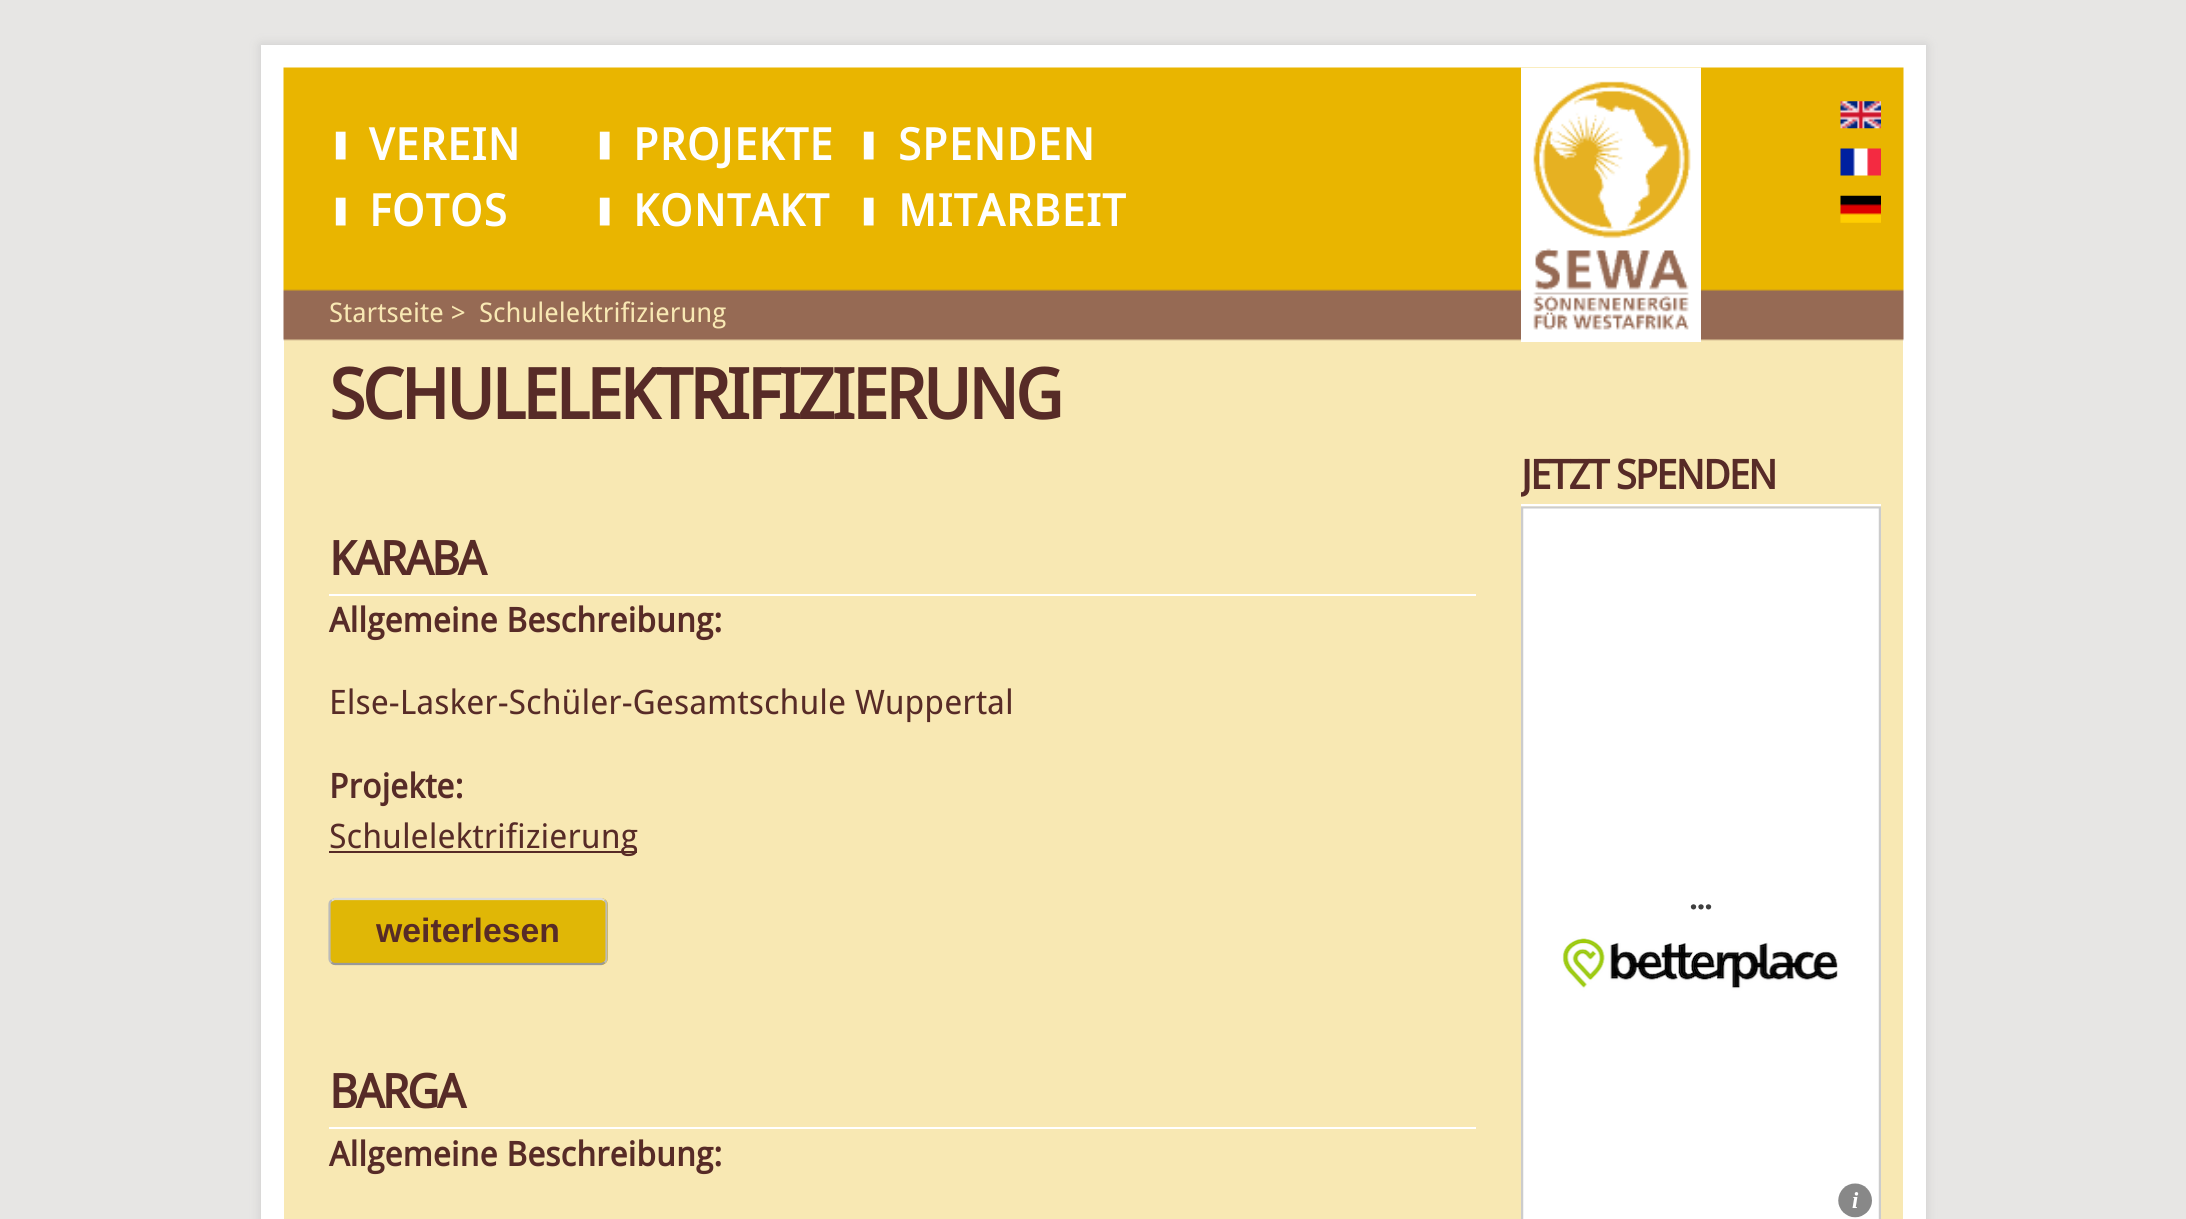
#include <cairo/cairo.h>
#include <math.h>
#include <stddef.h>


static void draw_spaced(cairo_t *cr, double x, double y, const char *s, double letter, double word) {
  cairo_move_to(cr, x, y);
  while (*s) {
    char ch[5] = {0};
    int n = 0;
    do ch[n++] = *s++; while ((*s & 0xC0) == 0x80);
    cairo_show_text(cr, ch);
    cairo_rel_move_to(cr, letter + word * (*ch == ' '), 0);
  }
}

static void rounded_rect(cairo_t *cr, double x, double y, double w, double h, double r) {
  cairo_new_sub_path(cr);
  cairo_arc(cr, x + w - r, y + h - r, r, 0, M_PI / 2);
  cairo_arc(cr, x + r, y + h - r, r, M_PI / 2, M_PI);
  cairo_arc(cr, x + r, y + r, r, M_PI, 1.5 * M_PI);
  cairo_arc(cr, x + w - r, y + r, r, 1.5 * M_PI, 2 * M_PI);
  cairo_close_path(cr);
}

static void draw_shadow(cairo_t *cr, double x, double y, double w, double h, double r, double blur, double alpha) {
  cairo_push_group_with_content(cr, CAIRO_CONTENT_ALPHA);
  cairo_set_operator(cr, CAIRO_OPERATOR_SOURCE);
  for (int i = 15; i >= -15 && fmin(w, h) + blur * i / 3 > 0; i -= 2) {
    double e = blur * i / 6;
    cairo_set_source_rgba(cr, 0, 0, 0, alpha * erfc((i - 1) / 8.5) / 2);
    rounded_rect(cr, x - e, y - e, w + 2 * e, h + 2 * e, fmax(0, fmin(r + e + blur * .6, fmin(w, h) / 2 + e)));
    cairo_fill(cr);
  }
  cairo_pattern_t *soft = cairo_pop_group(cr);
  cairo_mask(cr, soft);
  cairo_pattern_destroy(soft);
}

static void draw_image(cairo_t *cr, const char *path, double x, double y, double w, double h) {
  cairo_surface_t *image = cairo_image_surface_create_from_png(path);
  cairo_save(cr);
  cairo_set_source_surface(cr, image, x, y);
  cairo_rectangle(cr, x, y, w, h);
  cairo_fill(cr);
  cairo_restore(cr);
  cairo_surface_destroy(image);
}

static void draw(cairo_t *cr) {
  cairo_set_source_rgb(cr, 231 / 255.0, 230 / 255.0, 228 / 255.0);
  cairo_paint(cr);
  cairo_set_source_rgb(cr, 204 / 255.0, 204 / 255.0, 204 / 255.0);
  draw_shadow(cr, 261, 45, 1665, 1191, 0, 5.5, 1);
  cairo_set_source_rgb(cr, 248 / 255.0, 232 / 255.0, 179 / 255.0);
  cairo_rectangle(cr, 284, 339, 1619, 880);
  cairo_fill(cr);
  cairo_rectangle(cr, 272.5, 56.5, 1642, 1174);
  cairo_set_source_rgb(cr, 1, 1, 1);
  cairo_set_line_width(cr, 23);
  cairo_stroke(cr);
  draw_image(cr, "images/1.png", 283, 67, 1621, 274);
  draw_image(cr, "images/2.png", 1521, 67, 180, 275);
  draw_image(cr, "images/3.png", 1840, 101, 41, 28);
  draw_image(cr, "images/4.png", 1840, 148, 41, 28);
  draw_image(cr, "images/5.png", 1840, 195, 41, 28);
  cairo_rectangle(cr, 329, 594, 1147, 2);
  cairo_fill(cr);
  cairo_set_source_rgb(cr, 87 / 255.0, 43 / 255.0, 39 / 255.0);
  cairo_rectangle(cr, 329, 851, 308, 2);
  cairo_fill(cr);
  cairo_set_source_rgb(cr, 224 / 255.0, 183 / 255.0, 6 / 255.0);
  rounded_rect(cr, 329, 898, 279, 67, 7);
  cairo_fill(cr);
  cairo_new_path(cr);
  cairo_move_to(cr, 331.5, 900.5);
  cairo_line_to(cr, 334.5, 899);
  cairo_line_to(cr, 601, 899);
  cairo_curve_to(cr, 602, 899, 603.5, 899.5, 604.5, 900.5);
  cairo_set_source_rgb(cr, 221 / 255.0, 221 / 255.0, 221 / 255.0);
  cairo_set_line_width(cr, 2.2);
  cairo_stroke(cr);
  cairo_new_path(cr);
  cairo_move_to(cr, 604.5, 900.5);
  cairo_curve_to(cr, 606, 901.5, 606.5, 903, 606.5, 904.5);
  cairo_line_to(cr, 606.5, 958.5);
  cairo_curve_to(cr, 606.5, 960, 606, 961.5, 604.5, 962.5);
  cairo_set_source_rgb(cr, 187 / 255.0, 187 / 255.0, 187 / 255.0);
  cairo_stroke(cr);
  cairo_new_path(cr);
  cairo_move_to(cr, 604.5, 962.5);
  cairo_line_to(cr, 601.5, 964);
  cairo_line_to(cr, 335, 964);
  cairo_curve_to(cr, 334, 964, 332.5, 963.5, 331.5, 962.5);
  cairo_set_source_rgb(cr, 153 / 255.0, 153 / 255.0, 153 / 255.0);
  cairo_stroke(cr);
  cairo_new_path(cr);
  cairo_move_to(cr, 331.5, 962.5);
  cairo_curve_to(cr, 330, 961.5, 329.5, 960, 329.5, 958.5);
  cairo_line_to(cr, 329.5, 904.5);
  cairo_curve_to(cr, 329.5, 903, 330, 901.5, 331.5, 900.5);
  cairo_set_source_rgb(cr, 187 / 255.0, 187 / 255.0, 187 / 255.0);
  cairo_stroke(cr);
  cairo_set_source_rgb(cr, 1, 1, 1);
  cairo_rectangle(cr, 329, 1127, 1147, 2);
  cairo_fill(cr);
  cairo_rectangle(cr, 1521, 504, 360, 2);
  cairo_fill(cr);
  draw_image(cr, "images/6.png", 1521, 506, 360, 713);
  cairo_select_font_face(cr, "DejaVu Sans", CAIRO_FONT_SLANT_NORMAL, CAIRO_FONT_WEIGHT_BOLD);
  cairo_set_font_size(cr, 27);
  draw_spaced(cr, 329, 153, "❚", 1.25, 0);
  cairo_select_font_face(cr, "Droid Sans", CAIRO_FONT_SLANT_NORMAL, CAIRO_FONT_WEIGHT_BOLD);
  cairo_set_font_size(cr, 44);
  draw_spaced(cr, 369, 160, "VEREIN", 1.25, 0);
  cairo_select_font_face(cr, "DejaVu Sans", CAIRO_FONT_SLANT_NORMAL, CAIRO_FONT_WEIGHT_BOLD);
  cairo_set_font_size(cr, 27);
  draw_spaced(cr, 593, 153, "❚", 1.25, 0);
  cairo_select_font_face(cr, "Droid Sans", CAIRO_FONT_SLANT_NORMAL, CAIRO_FONT_WEIGHT_BOLD);
  cairo_set_font_size(cr, 44);
  draw_spaced(cr, 633, 160, "PROJEKTE", 1.25, 0);
  cairo_select_font_face(cr, "DejaVu Sans", CAIRO_FONT_SLANT_NORMAL, CAIRO_FONT_WEIGHT_BOLD);
  cairo_set_font_size(cr, 27);
  draw_spaced(cr, 857, 153, "❚", 1.25, 0);
  cairo_select_font_face(cr, "Droid Sans", CAIRO_FONT_SLANT_NORMAL, CAIRO_FONT_WEIGHT_BOLD);
  cairo_set_font_size(cr, 44);
  draw_spaced(cr, 898, 160, "SPENDEN", 1.25, 0);
  cairo_select_font_face(cr, "DejaVu Sans", CAIRO_FONT_SLANT_NORMAL, CAIRO_FONT_WEIGHT_BOLD);
  cairo_set_font_size(cr, 27);
  draw_spaced(cr, 329, 219, "❚", 1.25, 0);
  cairo_select_font_face(cr, "Droid Sans", CAIRO_FONT_SLANT_NORMAL, CAIRO_FONT_WEIGHT_BOLD);
  cairo_set_font_size(cr, 44);
  draw_spaced(cr, 369, 226, "FOTOS", 1.25, 0);
  cairo_select_font_face(cr, "DejaVu Sans", CAIRO_FONT_SLANT_NORMAL, CAIRO_FONT_WEIGHT_BOLD);
  cairo_set_font_size(cr, 27);
  draw_spaced(cr, 593, 219, "❚", 1.25, 0);
  cairo_select_font_face(cr, "Droid Sans", CAIRO_FONT_SLANT_NORMAL, CAIRO_FONT_WEIGHT_BOLD);
  cairo_set_font_size(cr, 44);
  draw_spaced(cr, 633, 226, "KONTAKT", 1.25, 0);
  cairo_select_font_face(cr, "DejaVu Sans", CAIRO_FONT_SLANT_NORMAL, CAIRO_FONT_WEIGHT_BOLD);
  cairo_set_font_size(cr, 27);
  draw_spaced(cr, 857, 219, "❚", 1.25, 0);
  cairo_select_font_face(cr, "Droid Sans", CAIRO_FONT_SLANT_NORMAL, CAIRO_FONT_WEIGHT_BOLD);
  cairo_set_font_size(cr, 44);
  draw_spaced(cr, 898, 226, "MITARBEIT", 1.25, 0);
  cairo_select_font_face(cr, "Droid Sans", CAIRO_FONT_SLANT_NORMAL, CAIRO_FONT_WEIGHT_NORMAL);
  cairo_set_font_size(cr, 27);
  cairo_set_source_rgb(cr, 248 / 255.0, 232 / 255.0, 179 / 255.0);
  cairo_move_to(cr, 329, 322);
  cairo_show_text(cr, "Startseite >");
  cairo_move_to(cr, 479, 322);
  cairo_show_text(cr, "Schulelektrifizierung");
  cairo_select_font_face(cr, "Droid Sans", CAIRO_FONT_SLANT_NORMAL, CAIRO_FONT_WEIGHT_BOLD);
  cairo_set_font_size(cr, 69.75);
  cairo_set_source_rgb(cr, 87 / 255.0, 43 / 255.0, 39 / 255.0);
  draw_spaced(cr, 329, 419, "SCHULELEKTRIFIZIERUNG", -3.5, 0);
  cairo_set_font_size(cr, 47);
  draw_spaced(cr, 329, 575, "KARABA", -2.5, 0);
  cairo_set_font_size(cr, 33.75);
  cairo_move_to(cr, 329, 632);
  cairo_show_text(cr, "Allgemeine Beschreibung:");
  cairo_select_font_face(cr, "Droid Sans", CAIRO_FONT_SLANT_NORMAL, CAIRO_FONT_WEIGHT_NORMAL);
  cairo_move_to(cr, 329, 714);
  cairo_show_text(cr, "Else-Lasker-Schüler-Gesamtschule Wuppertal");
  cairo_select_font_face(cr, "Droid Sans", CAIRO_FONT_SLANT_NORMAL, CAIRO_FONT_WEIGHT_BOLD);
  cairo_move_to(cr, 329, 798);
  cairo_show_text(cr, "Projekte:");
  cairo_select_font_face(cr, "Droid Sans", CAIRO_FONT_SLANT_NORMAL, CAIRO_FONT_WEIGHT_NORMAL);
  cairo_move_to(cr, 329, 848);
  cairo_show_text(cr, "Schulelektrifizierung");
  cairo_select_font_face(cr, "Liberation Sans", CAIRO_FONT_SLANT_NORMAL, CAIRO_FONT_WEIGHT_BOLD);
  cairo_move_to(cr, 376, 942);
  cairo_show_text(cr, "weiterlesen");
  cairo_select_font_face(cr, "Droid Sans", CAIRO_FONT_SLANT_NORMAL, CAIRO_FONT_WEIGHT_BOLD);
  cairo_set_font_size(cr, 47);
  draw_spaced(cr, 329, 1108, "BARGA", -2.5, 0);
  cairo_set_font_size(cr, 33.75);
  cairo_move_to(cr, 329, 1166);
  cairo_show_text(cr, "Allgemeine Beschreibung:");
  cairo_save(cr);
  cairo_rectangle(cr, 1521, 342, 360, 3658);
  cairo_clip(cr);
  cairo_set_font_size(cr, 40.5);
  draw_spaced(cr, 1521, 489, "JETZT SPENDEN", -2, 0);
  cairo_restore(cr);
}

int main(void) {
  cairo_surface_t *surface = cairo_image_surface_create(CAIRO_FORMAT_RGB24, 2186, 1219);
  cairo_t *cr = cairo_create(surface);
  cairo_font_options_t *options = cairo_font_options_create();
  cairo_font_options_set_hint_metrics(options, CAIRO_HINT_METRICS_OFF);
  cairo_font_options_set_hint_style(options, CAIRO_HINT_STYLE_NONE);
  cairo_set_font_options(cr, options);
  cairo_set_miter_limit(cr, 4);
  draw(cr);
  cairo_surface_write_to_png(surface, "out.png");
  cairo_font_options_destroy(options);
  cairo_destroy(cr);
  cairo_surface_destroy(surface);
  return 0;
}
